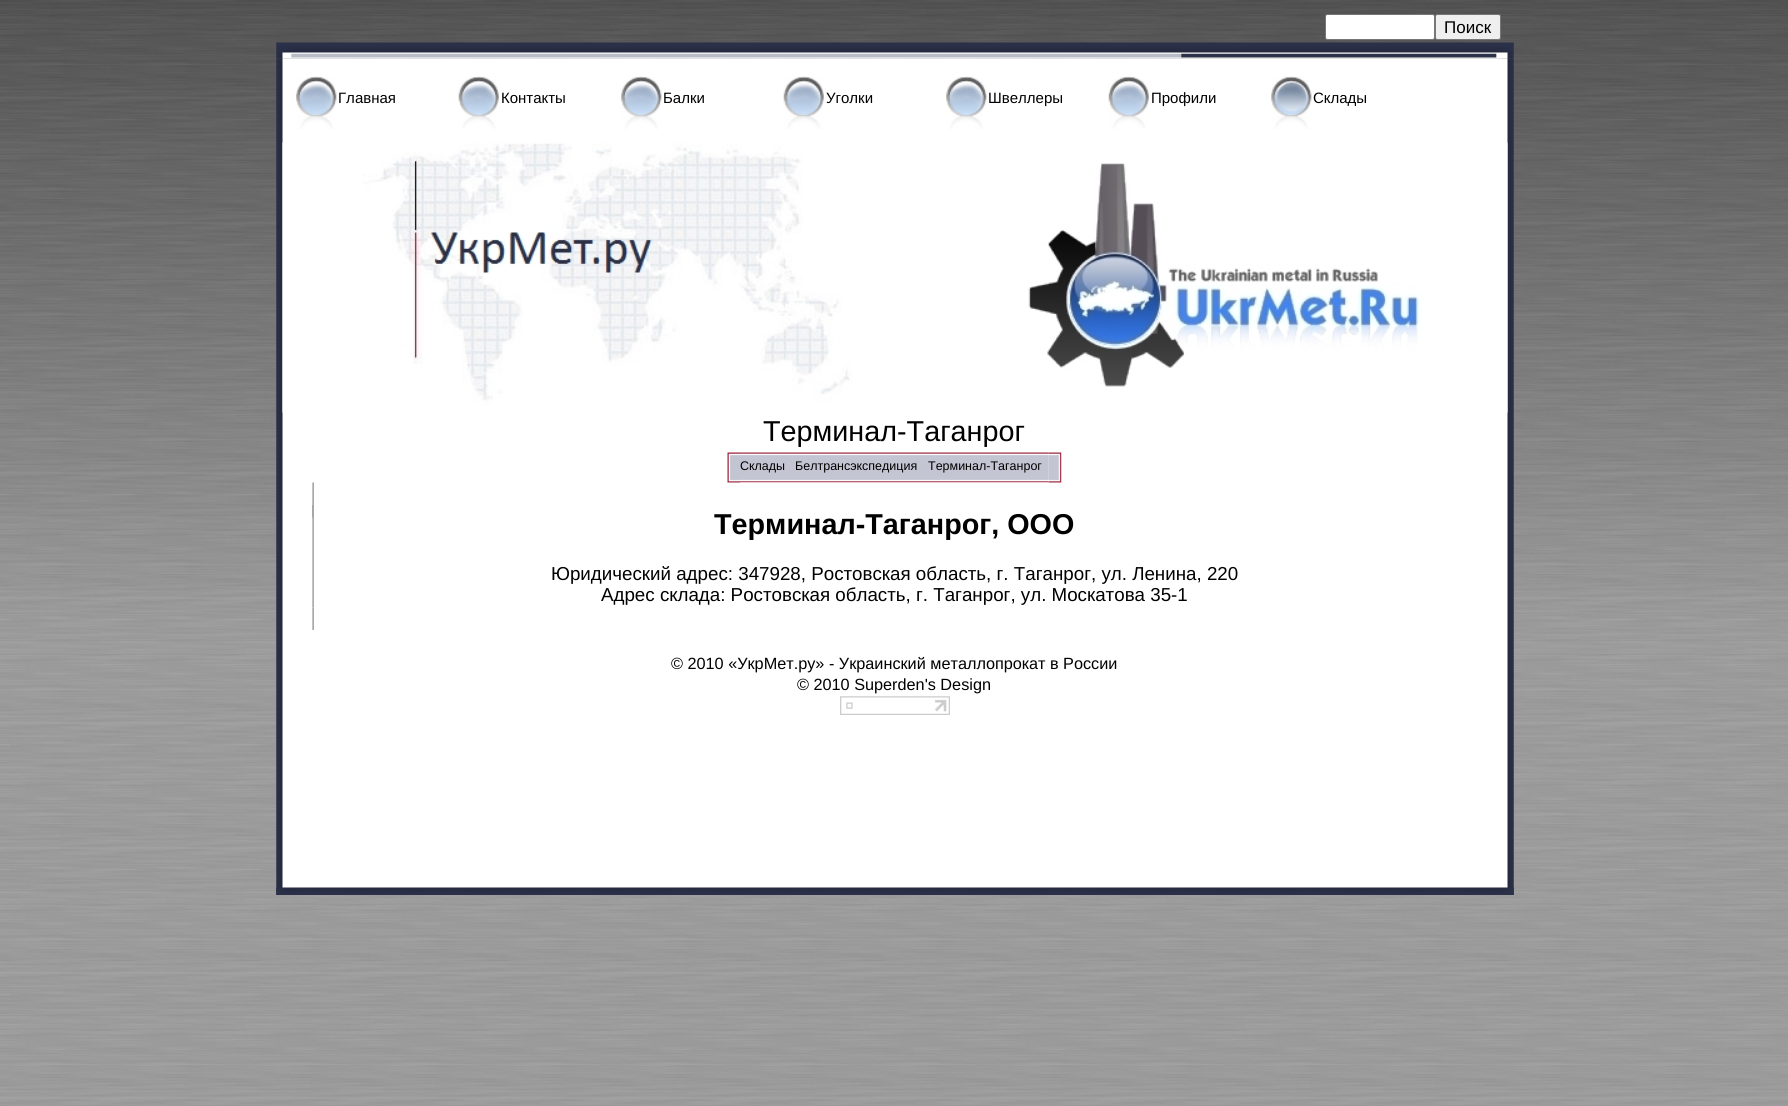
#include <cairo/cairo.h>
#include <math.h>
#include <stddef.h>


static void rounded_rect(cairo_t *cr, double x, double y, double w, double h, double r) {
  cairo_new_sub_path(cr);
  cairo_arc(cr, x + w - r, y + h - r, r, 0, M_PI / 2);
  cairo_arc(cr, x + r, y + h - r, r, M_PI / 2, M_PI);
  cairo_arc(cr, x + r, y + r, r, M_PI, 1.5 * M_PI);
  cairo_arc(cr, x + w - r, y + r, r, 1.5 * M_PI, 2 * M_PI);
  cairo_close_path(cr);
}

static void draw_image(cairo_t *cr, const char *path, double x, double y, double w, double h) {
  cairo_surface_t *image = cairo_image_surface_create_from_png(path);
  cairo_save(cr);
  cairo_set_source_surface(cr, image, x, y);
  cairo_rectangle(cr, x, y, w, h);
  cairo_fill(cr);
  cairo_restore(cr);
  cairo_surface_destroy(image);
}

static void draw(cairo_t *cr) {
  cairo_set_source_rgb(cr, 1, 1, 1);
  cairo_paint(cr);
  draw_image(cr, "images/1.png", 0, 0, 1788, 1106);
  draw_image(cr, "images/2.png", 276, 58, 1238, 837);
  cairo_set_source_rgb(cr, 1, 1, 1);
  rounded_rect(cr, 1325.5, 14.5, 109, 25, 2);
  cairo_fill_preserve(cr);
  cairo_set_source_rgb(cr, 118 / 255.0, 118 / 255.0, 118 / 255.0);
  cairo_set_line_width(cr, 1);
  cairo_stroke(cr);
  cairo_set_source_rgb(cr, 239 / 255.0, 239 / 255.0, 239 / 255.0);
  rounded_rect(cr, 1435.5, 14.5, 65, 25, 2);
  cairo_fill_preserve(cr);
  cairo_set_source_rgb(cr, 118 / 255.0, 118 / 255.0, 118 / 255.0);
  cairo_stroke(cr);
  draw_image(cr, "images/3.png", 296, 76, 41, 53);
  draw_image(cr, "images/4.png", 458, 76, 41, 53);
  draw_image(cr, "images/3.png", 621, 76, 41, 53);
  draw_image(cr, "images/4.png", 783, 76, 41, 53);
  draw_image(cr, "images/5.png", 946, 76, 41, 53);
  draw_image(cr, "images/6.png", 1108, 76, 41, 53);
  draw_image(cr, "images/7.png", 1271, 76, 41, 53);
  draw_image(cr, "images/8.png", 282, 142, 1226, 271);
  draw_image(cr, "images/9.png", 727, 452, 13, 31);
  draw_image(cr, "images/10.png", 740, 452, 309, 31);
  cairo_set_source_rgba(cr, 1, 1, 1, 0.5);
  cairo_rectangle(cr, 740, 482, 309, 1);
  cairo_fill(cr);
  draw_image(cr, "images/11.png", 1048, 452, 14, 31);
  draw_image(cr, "images/12.png", 312, 482, 2, 23);
  draw_image(cr, "images/13.png", 312, 505, 2, 103);
  draw_image(cr, "images/14.png", 312, 505, 2, 13);
  draw_image(cr, "images/15.png", 312, 607, 2, 23);
  draw_image(cr, "images/16.png", 840, 696, 110, 19);
  draw_image(cr, "images/17.png", 276, 887, 1238, 8);
  draw_image(cr, "images/18.png", 276, 42, 1238, 17);
  cairo_select_font_face(cr, "Liberation Sans", CAIRO_FONT_SLANT_NORMAL, CAIRO_FONT_WEIGHT_NORMAL);
  cairo_set_font_size(cr, 17);
  cairo_set_source_rgb(cr, 0, 0, 0);
  cairo_move_to(cr, 1444, 33);
  cairo_show_text(cr, "Поиск");
  cairo_set_font_size(cr, 15);
  cairo_move_to(cr, 338, 103);
  cairo_show_text(cr, "Главная");
  cairo_move_to(cr, 501, 103);
  cairo_show_text(cr, "Контакты");
  cairo_move_to(cr, 663, 103);
  cairo_show_text(cr, "Балки");
  cairo_move_to(cr, 826, 103);
  cairo_show_text(cr, "Уголки");
  cairo_move_to(cr, 988, 103);
  cairo_show_text(cr, "Швеллеры");
  cairo_move_to(cr, 1151, 103);
  cairo_show_text(cr, "Профили");
  cairo_move_to(cr, 1313, 103);
  cairo_show_text(cr, "Склады");
  cairo_set_font_size(cr, 28.75);
  cairo_move_to(cr, 763, 441);
  cairo_show_text(cr, "Терминал-Таганрог");
  cairo_set_font_size(cr, 12.5);
  cairo_move_to(cr, 740, 470);
  cairo_show_text(cr, "Склады");
  cairo_move_to(cr, 795, 470);
  cairo_show_text(cr, "Белтрансэкспедиция");
  cairo_move_to(cr, 928, 470);
  cairo_show_text(cr, "Терминал-Таганрог");
  cairo_select_font_face(cr, "Liberation Sans", CAIRO_FONT_SLANT_NORMAL, CAIRO_FONT_WEIGHT_BOLD);
  cairo_set_font_size(cr, 28.75);
  cairo_move_to(cr, 714, 534);
  cairo_show_text(cr, "Терминал-Таганрог, ООО");
  cairo_select_font_face(cr, "Liberation Sans", CAIRO_FONT_SLANT_NORMAL, CAIRO_FONT_WEIGHT_NORMAL);
  cairo_set_font_size(cr, 18.75);
  cairo_move_to(cr, 551, 580);
  cairo_show_text(cr, "Юридический адрес: 347928, Ростовская область, г. Таганрог, ул. Ленина, 220");
  cairo_move_to(cr, 601, 601);
  cairo_show_text(cr, "Адрес склада: Ростовская область, г. Таганрог, ул. Москатова 35-1");
  cairo_set_font_size(cr, 16.25);
  cairo_move_to(cr, 671, 669);
  cairo_show_text(cr, "© 2010 «УкрМет.ру» - Украинский металлопрокат в России");
  cairo_move_to(cr, 797, 690);
  cairo_show_text(cr, "© 2010 Superden's Design");
}

int main(void) {
  cairo_surface_t *surface = cairo_image_surface_create(CAIRO_FORMAT_RGB24, 1788, 1106);
  cairo_t *cr = cairo_create(surface);
  cairo_font_options_t *options = cairo_font_options_create();
  cairo_font_options_set_hint_metrics(options, CAIRO_HINT_METRICS_OFF);
  cairo_font_options_set_hint_style(options, CAIRO_HINT_STYLE_NONE);
  cairo_set_font_options(cr, options);
  cairo_set_miter_limit(cr, 4);
  draw(cr);
  cairo_surface_write_to_png(surface, "out.png");
  cairo_font_options_destroy(options);
  cairo_destroy(cr);
  cairo_surface_destroy(surface);
  return 0;
}
